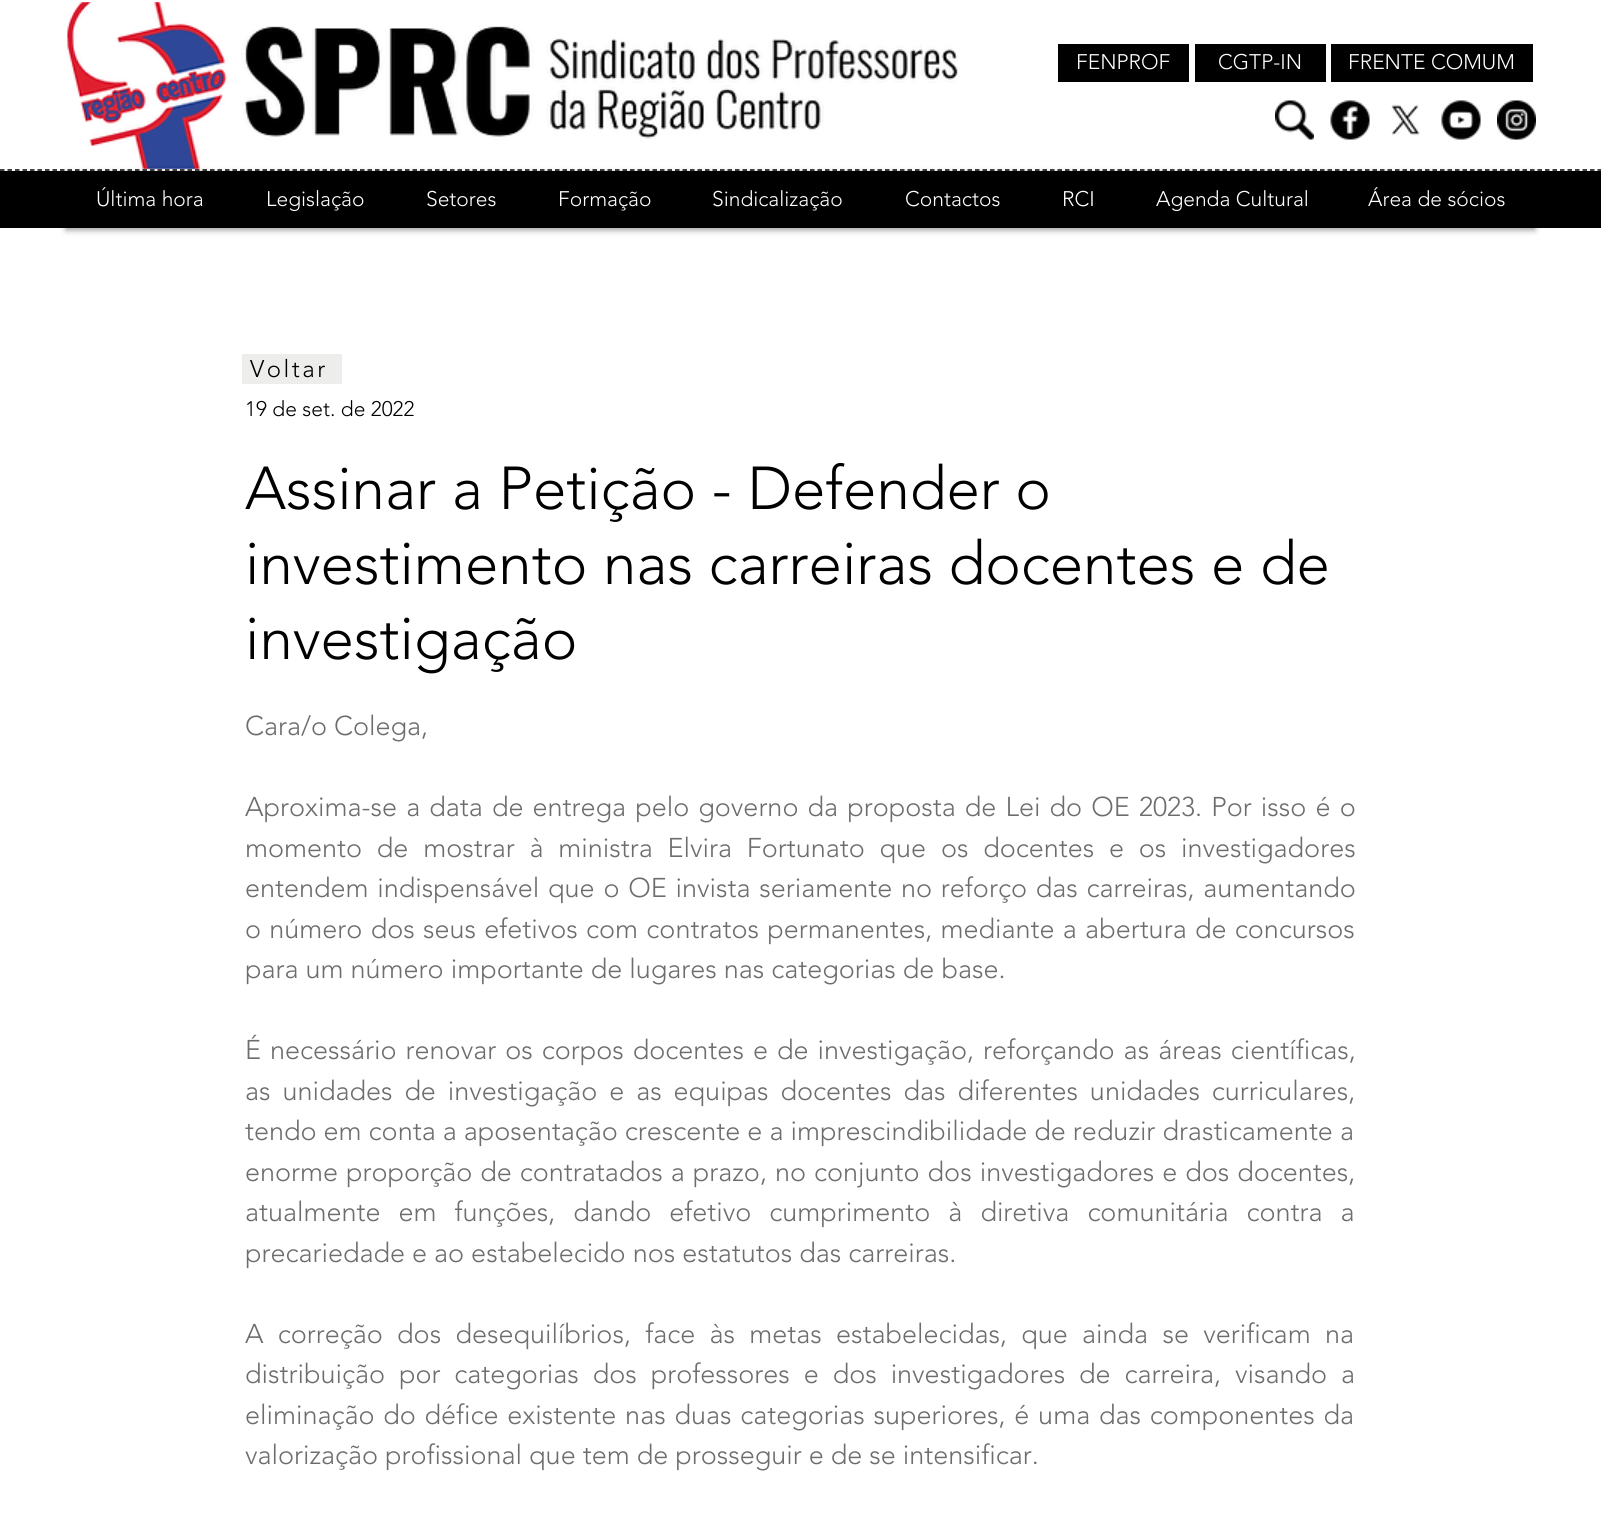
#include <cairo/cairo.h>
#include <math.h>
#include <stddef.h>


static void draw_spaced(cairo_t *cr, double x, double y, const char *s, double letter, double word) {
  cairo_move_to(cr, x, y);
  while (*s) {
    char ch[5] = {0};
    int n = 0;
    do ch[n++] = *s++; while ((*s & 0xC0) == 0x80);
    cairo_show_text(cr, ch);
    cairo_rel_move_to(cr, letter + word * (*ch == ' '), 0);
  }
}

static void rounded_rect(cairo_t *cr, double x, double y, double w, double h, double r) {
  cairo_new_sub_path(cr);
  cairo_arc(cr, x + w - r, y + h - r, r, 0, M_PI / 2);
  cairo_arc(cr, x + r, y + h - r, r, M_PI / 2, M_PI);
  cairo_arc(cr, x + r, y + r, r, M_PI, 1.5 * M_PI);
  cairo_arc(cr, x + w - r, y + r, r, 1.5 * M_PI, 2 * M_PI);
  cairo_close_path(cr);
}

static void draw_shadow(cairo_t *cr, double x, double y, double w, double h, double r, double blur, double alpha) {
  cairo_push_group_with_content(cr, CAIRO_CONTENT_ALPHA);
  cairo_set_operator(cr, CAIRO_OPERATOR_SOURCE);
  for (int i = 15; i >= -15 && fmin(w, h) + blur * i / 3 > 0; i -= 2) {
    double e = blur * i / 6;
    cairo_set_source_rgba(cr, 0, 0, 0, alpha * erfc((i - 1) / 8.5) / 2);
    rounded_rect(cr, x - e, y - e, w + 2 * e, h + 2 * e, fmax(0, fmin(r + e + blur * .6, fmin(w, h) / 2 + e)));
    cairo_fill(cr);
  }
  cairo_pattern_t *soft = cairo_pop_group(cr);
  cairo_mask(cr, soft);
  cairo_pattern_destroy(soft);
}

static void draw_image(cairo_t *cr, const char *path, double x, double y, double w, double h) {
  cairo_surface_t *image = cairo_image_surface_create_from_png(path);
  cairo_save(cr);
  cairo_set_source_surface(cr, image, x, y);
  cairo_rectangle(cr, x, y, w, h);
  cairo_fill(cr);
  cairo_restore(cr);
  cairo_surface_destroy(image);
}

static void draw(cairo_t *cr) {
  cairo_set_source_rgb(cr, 1, 1, 1);
  cairo_paint(cr);
  draw_image(cr, "images/1.png", 66, 2, 892, 168);
  cairo_set_source_rgb(cr, 0, 0, 0);
  cairo_rectangle(cr, 1058, 44, 131, 38);
  cairo_fill(cr);
  cairo_rectangle(cr, 1195, 44, 131, 38);
  cairo_fill(cr);
  cairo_rectangle(cr, 1331, 44, 202, 38);
  cairo_fill(cr);
  draw_image(cr, "images/2.png", 1275, 100, 39, 40);
  draw_image(cr, "images/3.png", 1330, 100, 40, 40);
  draw_image(cr, "images/4.png", 1391, 104, 29, 32);
  draw_image(cr, "images/5.png", 1441, 100, 40, 40);
  draw_image(cr, "images/6.png", 1497, 100, 39, 40);
  cairo_rectangle(cr, 0, 171, 1601, 57);
  cairo_fill(cr);
  cairo_save(cr);
  cairo_set_fill_rule(cr, CAIRO_FILL_RULE_EVEN_ODD);
  cairo_new_path(cr);
  cairo_move_to(cr, 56, 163);
  cairo_line_to(cr, 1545, 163);
  cairo_line_to(cr, 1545, 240);
  cairo_line_to(cr, 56, 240);
  cairo_close_path(cr);
  cairo_move_to(cr, 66, 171);
  cairo_line_to(cr, 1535, 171);
  cairo_line_to(cr, 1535, 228);
  cairo_line_to(cr, 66, 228);
  cairo_close_path(cr);
  cairo_clip(cr);
  cairo_set_source_rgb(cr, 0, 0, 0);
  draw_shadow(cr, 66, 173, 1469, 57, 0, 3, 0.4);
  cairo_restore(cr);
  cairo_new_path(cr);
  cairo_move_to(cr, 0, 170);
  cairo_line_to(cr, 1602, 170);
  cairo_set_line_width(cr, 1.5);
  cairo_set_dash(cr, (double[]){4.5, 3}, 2, 0);
  cairo_stroke(cr);
  cairo_set_source_rgb(cr, 237 / 255.0, 237 / 255.0, 236 / 255.0);
  cairo_rectangle(cr, 242, 354, 100, 30);
  cairo_fill(cr);
  cairo_select_font_face(cr, "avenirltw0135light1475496 Light", CAIRO_FONT_SLANT_NORMAL, CAIRO_FONT_WEIGHT_NORMAL);
  cairo_set_font_size(cr, 21);
  cairo_set_source_rgb(cr, 1, 1, 1);
  cairo_move_to(cr, 1076, 69);
  cairo_show_text(cr, "FENPROF");
  cairo_move_to(cr, 1218, 69);
  cairo_show_text(cr, "CGTP-IN");
  cairo_move_to(cr, 1348, 69);
  cairo_show_text(cr, "FRENTE COMUM");
  cairo_move_to(cr, 96, 206);
  cairo_show_text(cr, "Última hora");
  cairo_move_to(cr, 266, 206);
  cairo_show_text(cr, "Legislação");
  cairo_move_to(cr, 426, 206);
  cairo_show_text(cr, "Setores");
  cairo_move_to(cr, 558, 206);
  cairo_show_text(cr, "Formação");
  cairo_move_to(cr, 712, 206);
  cairo_show_text(cr, "Sindicalização");
  cairo_move_to(cr, 905, 206);
  cairo_show_text(cr, "Contactos");
  cairo_move_to(cr, 1062, 206);
  cairo_show_text(cr, "RCI");
  cairo_move_to(cr, 1156, 206);
  cairo_show_text(cr, "Agenda Cultural");
  cairo_move_to(cr, 1368, 206);
  cairo_show_text(cr, "Área de sócios");
  cairo_set_font_size(cr, 24);
  cairo_set_source_rgb(cr, 0, 0, 0);
  draw_spaced(cr, 250, 377, "Voltar", 2.5, 0);
  cairo_set_font_size(cr, 21);
  cairo_move_to(cr, 245, 416);
  cairo_show_text(cr, "19 de set. de 2022");
  cairo_set_font_size(cr, 60);
  cairo_move_to(cr, 245, 509);
  cairo_show_text(cr, "Assinar a Petição - Defender o");
  cairo_move_to(cr, 245, 584);
  cairo_show_text(cr, "investimento nas carreiras docentes e de");
  cairo_move_to(cr, 245, 659);
  cairo_show_text(cr, "investigação");
  cairo_set_font_size(cr, 27);
  cairo_set_source_rgb(cr, 109 / 255.0, 109 / 255.0, 109 / 255.0);
  cairo_move_to(cr, 245, 735);
  cairo_show_text(cr, "Cara/o Colega,");
  draw_spaced(cr, 245, 816, "Aproxima-se a data de entrega pelo governo da proposta de Lei do OE 2023. Por isso é o", 0, 2.1);
  draw_spaced(cr, 245, 857, "momento de mostrar à ministra Elvira Fortunato que os docentes e os investigadores", 0, 7.75);
  draw_spaced(cr, 245, 897, "entendem indispensável que o OE invista seriamente no reforço das carreiras, aumentando", 0, 1.75);
  draw_spaced(cr, 245, 938, "o número dos seus efetivos com contratos permanentes, mediante a abertura de concursos", 0, 1.25);
  cairo_move_to(cr, 245, 978);
  cairo_show_text(cr, "para um número importante de lugares nas categorias de base.");
  draw_spaced(cr, 245, 1059, "É necessário renovar os corpos docentes e de investigação, reforçando as áreas científicas,", 0, 2);
  draw_spaced(cr, 245, 1100, "as unidades de investigação e as equipas docentes das diferentes unidades curriculares,", 0, 4.9);
  cairo_move_to(cr, 245, 1140);
  cairo_show_text(cr, "tendo em conta a aposentação crescente e a imprescindibilidade de reduzir drasticamente a");
  draw_spaced(cr, 245, 1181, "enorme proporção de contratados a prazo, no conjunto dos investigadores e dos docentes,", 0, 1);
  draw_spaced(cr, 245, 1221, "atualmente em funções, dando efetivo cumprimento à diretiva comunitária contra a", 0, 11);
  cairo_move_to(cr, 245, 1262);
  cairo_show_text(cr, "precariedade e ao estabelecido nos estatutos das carreiras.");
  draw_spaced(cr, 245, 1343, "A correção dos desequilíbrios, face às metas estabelecidas, que ainda se verificam na", 0, 7.25);
  draw_spaced(cr, 245, 1383, "distribuição por categorias dos professores e dos investigadores de carreira, visando a", 0, 6.9);
  draw_spaced(cr, 245, 1424, "eliminação do défice existente nas duas categorias superiores, é uma das componentes da", 0, 1.75);
  cairo_move_to(cr, 245, 1464);
  cairo_show_text(cr, "valorização profissional que tem de prosseguir e de se intensificar.");
}

int main(void) {
  cairo_surface_t *surface = cairo_image_surface_create(CAIRO_FORMAT_RGB24, 1601, 1528);
  cairo_t *cr = cairo_create(surface);
  cairo_font_options_t *options = cairo_font_options_create();
  cairo_font_options_set_hint_metrics(options, CAIRO_HINT_METRICS_OFF);
  cairo_font_options_set_hint_style(options, CAIRO_HINT_STYLE_NONE);
  cairo_set_font_options(cr, options);
  cairo_set_miter_limit(cr, 4);
  draw(cr);
  cairo_surface_write_to_png(surface, "out.png");
  cairo_font_options_destroy(options);
  cairo_destroy(cr);
  cairo_surface_destroy(surface);
  return 0;
}
